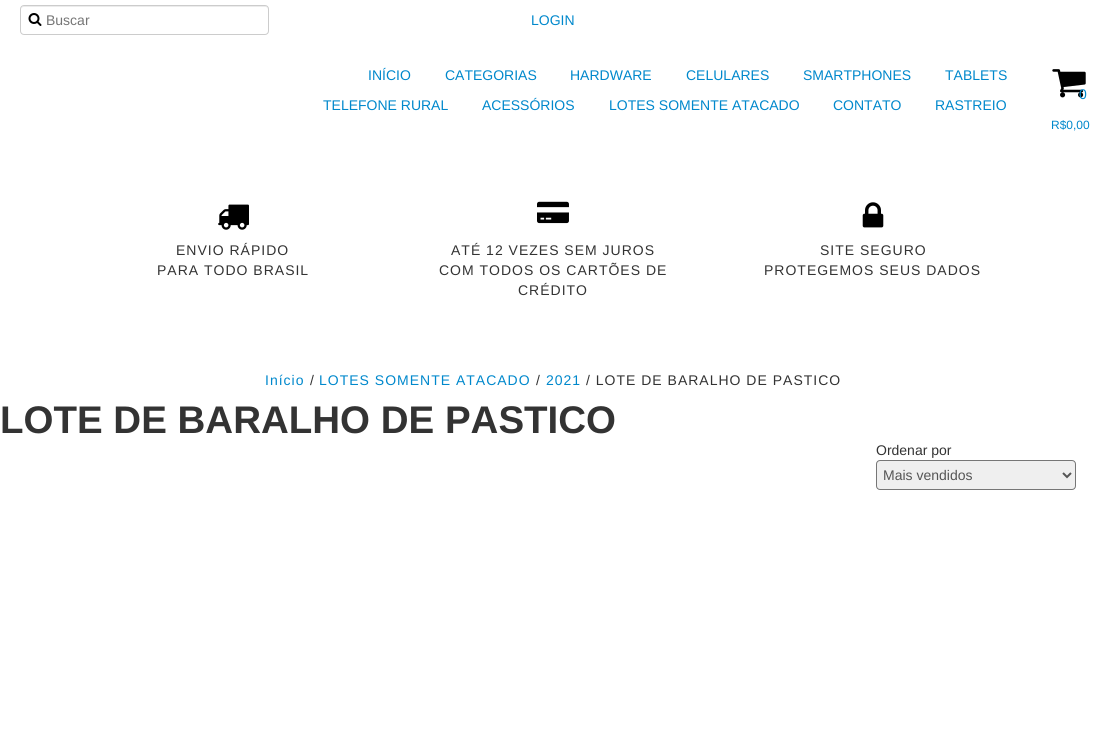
#include <cairo/cairo.h>
#include <math.h>
#include <stddef.h>


static void draw_spaced(cairo_t *cr, double x, double y, const char *s, double letter, double word) {
  cairo_move_to(cr, x, y);
  while (*s) {
    char ch[5] = {0};
    int n = 0;
    do ch[n++] = *s++; while ((*s & 0xC0) == 0x80);
    cairo_show_text(cr, ch);
    cairo_rel_move_to(cr, letter + word * (*ch == ' '), 0);
  }
}

static void rounded_rect(cairo_t *cr, double x, double y, double w, double h, double r) {
  cairo_new_sub_path(cr);
  cairo_arc(cr, x + w - r, y + h - r, r, 0, M_PI / 2);
  cairo_arc(cr, x + r, y + h - r, r, M_PI / 2, M_PI);
  cairo_arc(cr, x + r, y + r, r, M_PI, 1.5 * M_PI);
  cairo_arc(cr, x + w - r, y + r, r, 1.5 * M_PI, 2 * M_PI);
  cairo_close_path(cr);
}

static void draw_image(cairo_t *cr, const char *path, double x, double y, double w, double h) {
  cairo_surface_t *image = cairo_image_surface_create_from_png(path);
  cairo_save(cr);
  cairo_set_source_surface(cr, image, x, y);
  cairo_rectangle(cr, x, y, w, h);
  cairo_fill(cr);
  cairo_restore(cr);
  cairo_surface_destroy(image);
}

static void draw(cairo_t *cr) {
  cairo_set_source_rgb(cr, 1, 1, 1);
  cairo_paint(cr);
  cairo_set_source_rgb(cr, 236 / 255.0, 236 / 255.0, 236 / 255.0);
  cairo_new_path(cr);
  cairo_move_to(cr, 24, 7);
  cairo_line_to(cr, 266, 7);
  cairo_line_to(cr, 268, 8);
  cairo_line_to(cr, 268, 10);
  cairo_curve_to(cr, 268, 8, 267, 6, 265, 6);
  cairo_line_to(cr, 24, 6);
  cairo_curve_to(cr, 22, 6, 21, 8, 21, 10);
  cairo_curve_to(cr, 21, 8, 22, 7, 24, 7);
  cairo_close_path(cr);
  cairo_fill(cr);
  rounded_rect(cr, 20.5, 5.5, 248, 29, 3.5);
  cairo_set_source_rgb(cr, 204 / 255.0, 204 / 255.0, 204 / 255.0);
  cairo_set_line_width(cr, 1);
  cairo_stroke(cr);
  draw_image(cr, "images/1.png", 28, 13, 14, 13);
  draw_image(cr, "images/2.png", 1052, 69, 34, 29);
  draw_image(cr, "images/3.png", 218, 204, 31, 26);
  draw_image(cr, "images/4.png", 537, 201, 32, 23);
  draw_image(cr, "images/5.png", 862, 202, 22, 26);
  cairo_set_source_rgb(cr, 239 / 255.0, 239 / 255.0, 239 / 255.0);
  rounded_rect(cr, 876.5, 460.5, 199, 29, 3.5);
  cairo_fill_preserve(cr);
  cairo_set_source_rgb(cr, 118 / 255.0, 118 / 255.0, 118 / 255.0);
  cairo_stroke(cr);
  cairo_new_path(cr);
  cairo_move_to(cr, 1063, 473);
  cairo_line_to(cr, 1067, 477);
  cairo_line_to(cr, 1071, 473);
  cairo_set_source_rgb(cr, 85 / 255.0, 85 / 255.0, 85 / 255.0);
  cairo_set_line_width(cr, 2);
  cairo_stroke(cr);
  cairo_select_font_face(cr, "Liberation Sans", CAIRO_FONT_SLANT_NORMAL, CAIRO_FONT_WEIGHT_NORMAL);
  cairo_set_font_size(cr, 14);
  cairo_set_source_rgb(cr, 117 / 255.0, 117 / 255.0, 117 / 255.0);
  cairo_move_to(cr, 46, 25);
  cairo_show_text(cr, "Buscar");
  cairo_set_source_rgb(cr, 0, 136 / 255.0, 204 / 255.0);
  cairo_move_to(cr, 531, 25);
  cairo_show_text(cr, "LOGIN");
  cairo_move_to(cr, 368, 80);
  cairo_show_text(cr, "INÍCIO");
  cairo_move_to(cr, 445, 80);
  cairo_show_text(cr, "CATEGORIAS");
  cairo_move_to(cr, 570, 80);
  cairo_show_text(cr, "HARDWARE");
  cairo_move_to(cr, 686, 80);
  cairo_show_text(cr, "CELULARES");
  cairo_move_to(cr, 803, 80);
  cairo_show_text(cr, "SMARTPHONES");
  cairo_move_to(cr, 945, 80);
  cairo_show_text(cr, "TABLETS");
  cairo_move_to(cr, 323, 110);
  cairo_show_text(cr, "TELEFONE RURAL");
  cairo_move_to(cr, 482, 110);
  cairo_show_text(cr, "ACESSÓRIOS");
  cairo_move_to(cr, 609, 110);
  cairo_show_text(cr, "LOTES SOMENTE ATACADO");
  cairo_move_to(cr, 833, 110);
  cairo_show_text(cr, "CONTATO");
  cairo_move_to(cr, 935, 110);
  cairo_show_text(cr, "RASTREIO");
  cairo_move_to(cr, 1079, 99);
  cairo_show_text(cr, "0");
  cairo_set_font_size(cr, 12);
  cairo_move_to(cr, 1051, 129);
  cairo_show_text(cr, "R$0,00");
  cairo_set_font_size(cr, 14);
  cairo_set_source_rgb(cr, 51 / 255.0, 51 / 255.0, 51 / 255.0);
  draw_spaced(cr, 176, 255, "ENVIO RÁPIDO", 1, 0);
  draw_spaced(cr, 157, 275, "PARA TODO BRASIL", 1, 0);
  draw_spaced(cr, 451, 255, "ATÉ 12 VEZES SEM JUROS", 1, 0);
  draw_spaced(cr, 439, 275, "COM TODOS OS CARTÕES DE", 1, 0);
  draw_spaced(cr, 518, 295, "CRÉDITO", 1, 0);
  draw_spaced(cr, 820, 255, "SITE SEGURO", 1, 0);
  draw_spaced(cr, 764, 275, "PROTEGEMOS SEUS DADOS", 1, 0);
  cairo_set_source_rgb(cr, 0, 136 / 255.0, 204 / 255.0);
  draw_spaced(cr, 265, 385, "Início", 1, 0);
  cairo_set_source_rgb(cr, 51 / 255.0, 51 / 255.0, 51 / 255.0);
  draw_spaced(cr, 310, 385, "/", 1, 0);
  cairo_set_source_rgb(cr, 0, 136 / 255.0, 204 / 255.0);
  draw_spaced(cr, 319, 385, "LOTES SOMENTE ATACADO", 1, 0);
  cairo_set_source_rgb(cr, 51 / 255.0, 51 / 255.0, 51 / 255.0);
  draw_spaced(cr, 536, 385, "/", 1, 0);
  cairo_set_source_rgb(cr, 0, 136 / 255.0, 204 / 255.0);
  draw_spaced(cr, 546, 385, "2021", 1, 0);
  cairo_set_source_rgb(cr, 51 / 255.0, 51 / 255.0, 51 / 255.0);
  draw_spaced(cr, 586, 385, "/ LOTE DE BARALHO DE PASTICO", 1, 0);
  cairo_select_font_face(cr, "Liberation Sans", CAIRO_FONT_SLANT_NORMAL, CAIRO_FONT_WEIGHT_BOLD);
  cairo_set_font_size(cr, 38.5);
  cairo_move_to(cr, 0, 433);
  cairo_show_text(cr, "LOTE DE BARALHO DE PASTICO");
  cairo_select_font_face(cr, "Liberation Sans", CAIRO_FONT_SLANT_NORMAL, CAIRO_FONT_WEIGHT_NORMAL);
  cairo_set_font_size(cr, 14);
  cairo_move_to(cr, 876, 455);
  cairo_show_text(cr, "Ordenar por");
  cairo_set_source_rgb(cr, 85 / 255.0, 85 / 255.0, 85 / 255.0);
  cairo_move_to(cr, 883, 480);
  cairo_show_text(cr, "Mais vendidos");
}

int main(void) {
  cairo_surface_t *surface = cairo_image_surface_create(CAIRO_FORMAT_RGB24, 1106, 755);
  cairo_t *cr = cairo_create(surface);
  cairo_font_options_t *options = cairo_font_options_create();
  cairo_font_options_set_hint_metrics(options, CAIRO_HINT_METRICS_OFF);
  cairo_font_options_set_hint_style(options, CAIRO_HINT_STYLE_NONE);
  cairo_set_font_options(cr, options);
  cairo_set_miter_limit(cr, 4);
  draw(cr);
  cairo_surface_write_to_png(surface, "out.png");
  cairo_font_options_destroy(options);
  cairo_destroy(cr);
  cairo_surface_destroy(surface);
  return 0;
}
